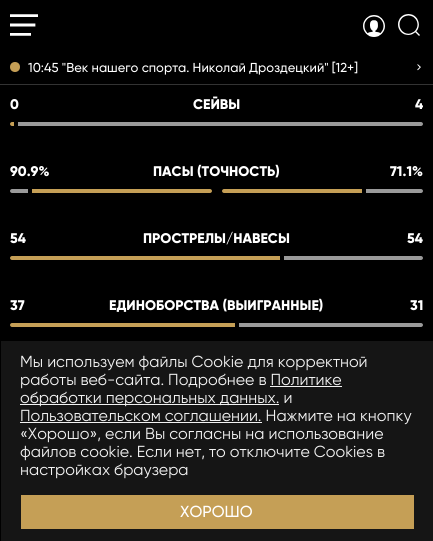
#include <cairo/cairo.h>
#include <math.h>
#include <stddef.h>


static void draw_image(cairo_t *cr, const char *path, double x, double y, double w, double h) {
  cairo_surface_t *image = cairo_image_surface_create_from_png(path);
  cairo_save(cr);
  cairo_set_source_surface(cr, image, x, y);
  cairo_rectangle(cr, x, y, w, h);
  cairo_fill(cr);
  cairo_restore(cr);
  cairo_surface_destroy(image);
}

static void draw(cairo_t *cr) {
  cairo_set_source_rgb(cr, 0, 0, 0);
  cairo_paint(cr);
  draw_image(cr, "images/1.png", 10, 14, 28, 22);
  draw_image(cr, "images/2.png", 363, 15, 22, 22);
  draw_image(cr, "images/3.png", 398, 14, 22, 22);
  cairo_set_source_rgb(cr, 51 / 255.0, 51 / 255.0, 51 / 255.0);
  cairo_rectangle(cr, 0, 84, 433, 1);
  cairo_fill(cr);
  cairo_set_source_rgb(cr, 197 / 255.0, 159 / 255.0, 86 / 255.0);
  cairo_arc(cr, 15, 67, 5, 0, 2 * M_PI);
  cairo_fill(cr);
  draw_image(cr, "images/4.png", 417, 64, 4, 7);
  cairo_new_path(cr);
  cairo_move_to(cr, 12, 122);
  cairo_line_to(cr, 14, 122);
  cairo_line_to(cr, 14, 126);
  cairo_line_to(cr, 12, 126);
  cairo_curve_to(cr, 11, 126, 10, 125, 10, 124);
  cairo_curve_to(cr, 10, 123, 11, 122, 12, 122);
  cairo_close_path(cr);
  cairo_fill(cr);
  cairo_set_source_rgb(cr, 154 / 255.0, 154 / 255.0, 154 / 255.0);
  cairo_new_path(cr);
  cairo_move_to(cr, 18, 122);
  cairo_line_to(cr, 421, 122);
  cairo_curve_to(cr, 422, 122, 423, 123, 423, 124);
  cairo_curve_to(cr, 423, 125, 422, 126, 421, 126);
  cairo_line_to(cr, 18, 126);
  cairo_close_path(cr);
  cairo_fill(cr);
  cairo_new_path(cr);
  cairo_move_to(cr, 12, 189);
  cairo_line_to(cr, 28, 189);
  cairo_line_to(cr, 28, 193);
  cairo_line_to(cr, 12, 193);
  cairo_curve_to(cr, 11, 193, 10, 192, 10, 191);
  cairo_curve_to(cr, 10, 190, 11, 189, 12, 189);
  cairo_close_path(cr);
  cairo_fill(cr);
  cairo_set_source_rgb(cr, 197 / 255.0, 159 / 255.0, 86 / 255.0);
  cairo_new_path(cr);
  cairo_move_to(cr, 32, 189);
  cairo_line_to(cr, 210, 189);
  cairo_curve_to(cr, 211, 189, 212, 190, 212, 191);
  cairo_curve_to(cr, 212, 192, 211, 193, 210, 193);
  cairo_line_to(cr, 32, 193);
  cairo_close_path(cr);
  cairo_fill(cr);
  cairo_new_path(cr);
  cairo_move_to(cr, 224, 189);
  cairo_line_to(cr, 362, 189);
  cairo_line_to(cr, 362, 193);
  cairo_line_to(cr, 224, 193);
  cairo_curve_to(cr, 223, 193, 222, 192, 222, 191);
  cairo_curve_to(cr, 222, 190, 223, 189, 224, 189);
  cairo_close_path(cr);
  cairo_fill(cr);
  cairo_set_source_rgb(cr, 154 / 255.0, 154 / 255.0, 154 / 255.0);
  cairo_new_path(cr);
  cairo_move_to(cr, 366, 189);
  cairo_line_to(cr, 421, 189);
  cairo_curve_to(cr, 422, 189, 423, 190, 423, 191);
  cairo_curve_to(cr, 423, 192, 422, 193, 421, 193);
  cairo_line_to(cr, 366, 193);
  cairo_close_path(cr);
  cairo_fill(cr);
  cairo_set_source_rgb(cr, 197 / 255.0, 159 / 255.0, 86 / 255.0);
  cairo_new_path(cr);
  cairo_move_to(cr, 12, 256);
  cairo_line_to(cr, 280, 256);
  cairo_line_to(cr, 280, 260);
  cairo_line_to(cr, 12, 260);
  cairo_curve_to(cr, 11, 260, 10, 259, 10, 258);
  cairo_curve_to(cr, 10, 257, 11, 256, 12, 256);
  cairo_close_path(cr);
  cairo_fill(cr);
  cairo_set_source_rgb(cr, 154 / 255.0, 154 / 255.0, 154 / 255.0);
  cairo_new_path(cr);
  cairo_move_to(cr, 284, 256);
  cairo_line_to(cr, 421, 256);
  cairo_curve_to(cr, 422, 256, 423, 257, 423, 258);
  cairo_curve_to(cr, 423, 259, 422, 260, 421, 260);
  cairo_line_to(cr, 284, 260);
  cairo_close_path(cr);
  cairo_fill(cr);
  cairo_set_source_rgb(cr, 197 / 255.0, 159 / 255.0, 86 / 255.0);
  cairo_new_path(cr);
  cairo_move_to(cr, 12, 323);
  cairo_line_to(cr, 235, 323);
  cairo_line_to(cr, 235, 327);
  cairo_line_to(cr, 12, 327);
  cairo_curve_to(cr, 11, 327, 10, 326, 10, 325);
  cairo_curve_to(cr, 10, 324, 11, 323, 12, 323);
  cairo_close_path(cr);
  cairo_fill(cr);
  cairo_set_source_rgb(cr, 154 / 255.0, 154 / 255.0, 154 / 255.0);
  cairo_new_path(cr);
  cairo_move_to(cr, 239, 323);
  cairo_line_to(cr, 421, 323);
  cairo_curve_to(cr, 422, 323, 423, 324, 423, 325);
  cairo_curve_to(cr, 423, 326, 422, 327, 421, 327);
  cairo_line_to(cr, 239, 327);
  cairo_close_path(cr);
  cairo_fill(cr);
  cairo_set_source_rgb(cr, 21 / 255.0, 21 / 255.0, 21 / 255.0);
  cairo_rectangle(cr, 1, 341, 432, 200);
  cairo_fill(cr);
  cairo_set_source_rgb(cr, 242 / 255.0, 242 / 255.0, 242 / 255.0);
  cairo_rectangle(cr, 270, 386, 72, 1);
  cairo_fill(cr);
  cairo_rectangle(cr, 20, 404, 259, 1);
  cairo_fill(cr);
  cairo_rectangle(cr, 20, 422, 242, 1);
  cairo_fill(cr);
  cairo_set_source_rgb(cr, 197 / 255.0, 159 / 255.0, 86 / 255.0);
  cairo_rectangle(cr, 21, 495, 393, 34);
  cairo_fill(cr);
  cairo_select_font_face(cr, "Gilroy Medium", CAIRO_FONT_SLANT_NORMAL, CAIRO_FONT_WEIGHT_NORMAL);
  cairo_set_font_size(cr, 13);
  cairo_set_source_rgb(cr, 1, 1, 1);
  cairo_move_to(cr, 28, 72);
  cairo_show_text(cr, "10:45 \"Век нашего спорта. Николай Дроздецкий\" [12+]");
  cairo_select_font_face(cr, "Gilroy ExtraBold", CAIRO_FONT_SLANT_NORMAL, CAIRO_FONT_WEIGHT_NORMAL);
  cairo_set_font_size(cr, 14);
  cairo_move_to(cr, 10, 109);
  cairo_show_text(cr, "0");
  cairo_move_to(cr, 193, 109);
  cairo_show_text(cr, "СЕЙВЫ");
  cairo_move_to(cr, 415, 109);
  cairo_show_text(cr, "4");
  cairo_move_to(cr, 10, 176);
  cairo_show_text(cr, "90.9%");
  cairo_move_to(cr, 153, 176);
  cairo_show_text(cr, "ПАСЫ (ТОЧНОСТЬ)");
  cairo_move_to(cr, 390, 176);
  cairo_show_text(cr, "71.1%");
  cairo_move_to(cr, 10, 243);
  cairo_show_text(cr, "54");
  cairo_move_to(cr, 143, 243);
  cairo_show_text(cr, "ПРОСТРЕЛЫ/НАВЕСЫ");
  cairo_move_to(cr, 407, 243);
  cairo_show_text(cr, "54");
  cairo_move_to(cr, 10, 310);
  cairo_show_text(cr, "37");
  cairo_move_to(cr, 109, 310);
  cairo_show_text(cr, "ЕДИНОБОРСТВА (ВЫИГРАННЫЕ)");
  cairo_move_to(cr, 410, 310);
  cairo_show_text(cr, "31");
  cairo_select_font_face(cr, "Gilroy", CAIRO_FONT_SLANT_NORMAL, CAIRO_FONT_WEIGHT_NORMAL);
  cairo_set_font_size(cr, 16);
  cairo_set_source_rgb(cr, 242 / 255.0, 242 / 255.0, 242 / 255.0);
  cairo_move_to(cr, 20, 367);
  cairo_show_text(cr, "Мы используем файлы Сookie для корректной");
  cairo_move_to(cr, 20, 385);
  cairo_show_text(cr, "работы веб-сайта. Подробнее в Политике");
  cairo_move_to(cr, 20, 403);
  cairo_show_text(cr, "обработки персональных данных. и");
  cairo_move_to(cr, 20, 421);
  cairo_show_text(cr, "Пользовательском соглашении. Нажмите на кнопку");
  cairo_move_to(cr, 20, 439);
  cairo_show_text(cr, "«Хорошо», если Вы согласны на использование");
  cairo_move_to(cr, 20, 457);
  cairo_show_text(cr, "файлов cookie. Если нет, то отключите Cookies в");
  cairo_move_to(cr, 20, 475);
  cairo_show_text(cr, "настройках браузера");
  cairo_select_font_face(cr, "Gilroy Medium", CAIRO_FONT_SLANT_NORMAL, CAIRO_FONT_WEIGHT_NORMAL);
  cairo_set_source_rgb(cr, 1, 1, 1);
  cairo_move_to(cr, 180, 517);
  cairo_show_text(cr, "ХОРОШО");
}

int main(void) {
  cairo_surface_t *surface = cairo_image_surface_create(CAIRO_FORMAT_RGB24, 433, 541);
  cairo_t *cr = cairo_create(surface);
  cairo_font_options_t *options = cairo_font_options_create();
  cairo_font_options_set_hint_metrics(options, CAIRO_HINT_METRICS_OFF);
  cairo_font_options_set_hint_style(options, CAIRO_HINT_STYLE_NONE);
  cairo_set_font_options(cr, options);
  cairo_set_miter_limit(cr, 4);
  draw(cr);
  cairo_surface_write_to_png(surface, "out.png");
  cairo_font_options_destroy(options);
  cairo_destroy(cr);
  cairo_surface_destroy(surface);
  return 0;
}
